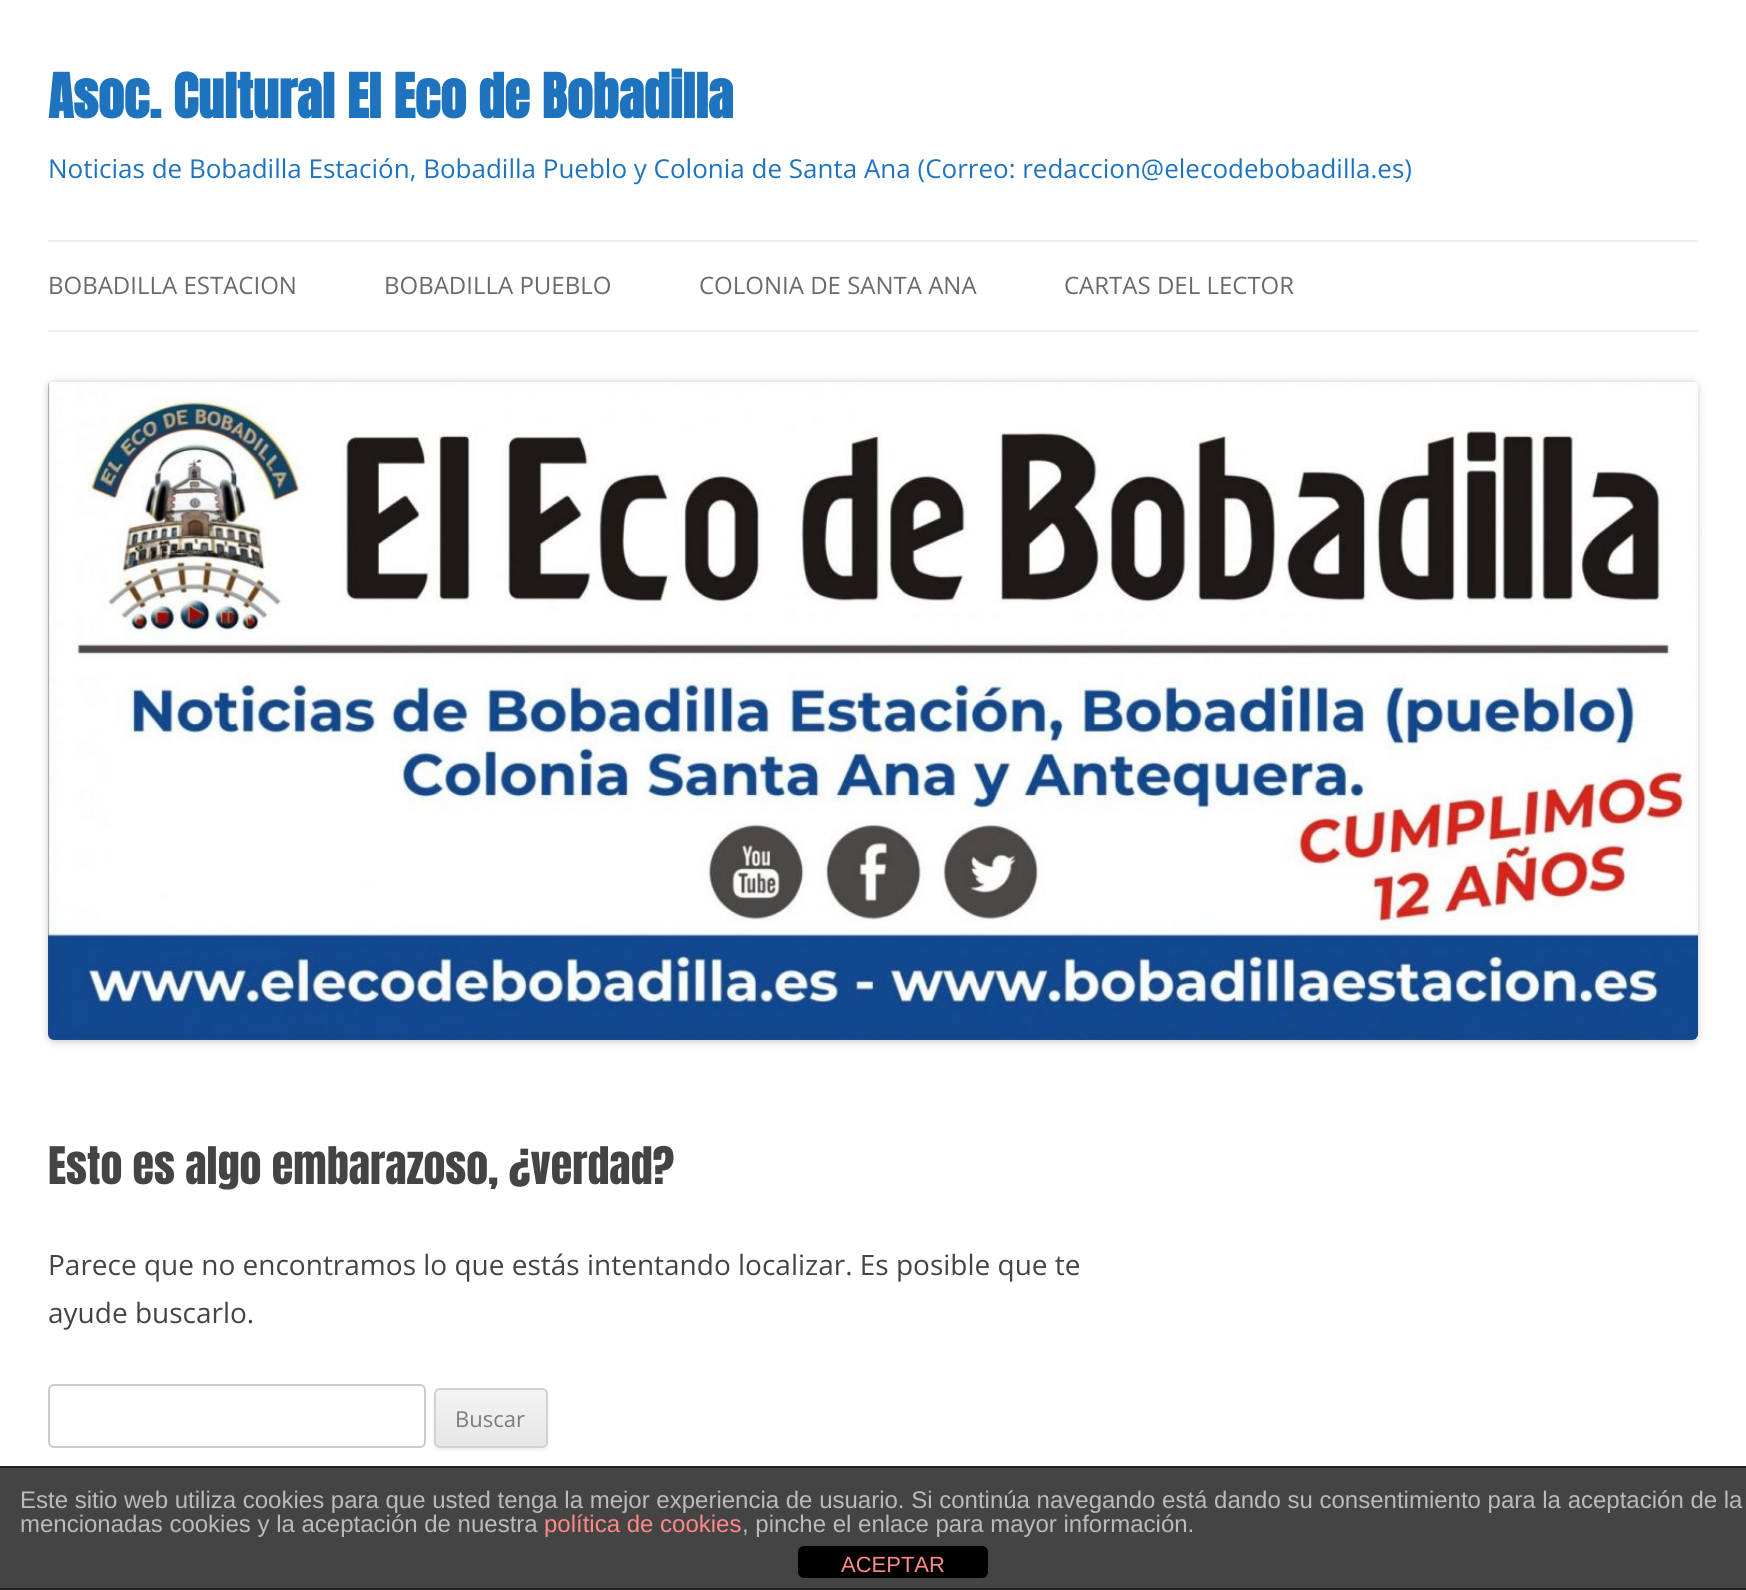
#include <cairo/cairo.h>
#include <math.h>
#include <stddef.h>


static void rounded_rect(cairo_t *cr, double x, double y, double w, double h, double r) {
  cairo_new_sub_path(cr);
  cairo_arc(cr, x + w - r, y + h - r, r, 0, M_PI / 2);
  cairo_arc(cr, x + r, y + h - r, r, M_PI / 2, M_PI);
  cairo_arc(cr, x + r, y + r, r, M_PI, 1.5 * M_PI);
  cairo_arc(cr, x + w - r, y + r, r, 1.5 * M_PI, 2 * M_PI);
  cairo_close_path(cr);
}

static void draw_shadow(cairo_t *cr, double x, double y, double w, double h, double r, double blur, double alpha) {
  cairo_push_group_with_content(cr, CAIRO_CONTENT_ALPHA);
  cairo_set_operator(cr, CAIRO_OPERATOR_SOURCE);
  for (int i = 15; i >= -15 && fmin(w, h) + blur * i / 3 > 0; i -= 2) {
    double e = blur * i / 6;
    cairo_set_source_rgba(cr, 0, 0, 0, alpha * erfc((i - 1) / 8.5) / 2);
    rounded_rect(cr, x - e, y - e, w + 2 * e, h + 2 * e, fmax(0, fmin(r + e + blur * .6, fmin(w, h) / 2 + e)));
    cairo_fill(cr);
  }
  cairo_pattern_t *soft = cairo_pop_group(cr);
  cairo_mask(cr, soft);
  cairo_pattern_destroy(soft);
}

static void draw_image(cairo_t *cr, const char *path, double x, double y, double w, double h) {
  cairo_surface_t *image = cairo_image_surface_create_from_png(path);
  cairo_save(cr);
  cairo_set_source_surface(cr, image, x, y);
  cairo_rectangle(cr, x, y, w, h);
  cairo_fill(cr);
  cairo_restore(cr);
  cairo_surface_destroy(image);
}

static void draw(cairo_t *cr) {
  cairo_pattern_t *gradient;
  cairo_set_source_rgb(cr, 1, 1, 1);
  cairo_paint(cr);
  cairo_set_source_rgb(cr, 237 / 255.0, 237 / 255.0, 237 / 255.0);
  cairo_rectangle(cr, 48, 240, 1650, 2);
  cairo_fill(cr);
  cairo_rectangle(cr, 48, 330, 1650, 2);
  cairo_fill(cr);
  cairo_set_source_rgb(cr, 0, 0, 0);
  draw_shadow(cr, 48, 382, 1650, 660, 6, 4, 0.2);
  draw_image(cr, "images/1.png", 48, 382, 1650, 658);
  rounded_rect(cr, 49, 1385, 376, 62, 5);
  cairo_set_source_rgb(cr, 204 / 255.0, 204 / 255.0, 204 / 255.0);
  cairo_stroke(cr);
  cairo_set_source_rgb(cr, 64 / 255.0, 64 / 255.0, 64 / 255.0);
  draw_shadow(cr, 434, 1390, 114, 60, 6, 2, 0.1);
  cairo_save(cr);
  rounded_rect(cr, 434, 1388, 114, 60, 6);
  cairo_clip(cr);
  gradient = cairo_pattern_create_linear(491, 1390, 491, 1446);
  cairo_pattern_add_color_stop_rgba(gradient, 0, 244 / 255.0, 244 / 255.0, 244 / 255.0, 1);
  cairo_pattern_add_color_stop_rgba(gradient, 1, 230 / 255.0, 230 / 255.0, 230 / 255.0, 1);
  cairo_set_source(cr, gradient);
  cairo_pattern_destroy(gradient);
  cairo_rectangle(cr, 434, 1390, 114, 56);
  cairo_fill(cr);
  cairo_restore(cr);
  rounded_rect(cr, 435, 1389, 112, 58, 5);
  cairo_set_source_rgb(cr, 210 / 255.0, 210 / 255.0, 210 / 255.0);
  cairo_stroke(cr);
  cairo_set_source_rgb(cr, 68 / 255.0, 68 / 255.0, 68 / 255.0);
  cairo_rectangle(cr, 0, 1468, 1746, 120);
  cairo_fill(cr);
  cairo_set_source_rgb(cr, 34 / 255.0, 34 / 255.0, 34 / 255.0);
  cairo_rectangle(cr, 0, 1466, 1746, 2);
  cairo_fill(cr);
  cairo_rectangle(cr, 0, 1588, 1746, 2);
  cairo_fill(cr);
  cairo_set_source_rgb(cr, 0, 0, 0);
  rounded_rect(cr, 798, 1546, 190, 32, 6);
  cairo_fill(cr);
  cairo_select_font_face(cr, "Anton", CAIRO_FONT_SLANT_NORMAL, CAIRO_FONT_WEIGHT_BOLD);
  cairo_set_font_size(cr, 52);
  cairo_set_source_rgb(cr, 30 / 255.0, 115 / 255.0, 190 / 255.0);
  cairo_move_to(cr, 48, 118);
  cairo_show_text(cr, "Asoc. Cultural El Eco de Bobadilla");
  cairo_select_font_face(cr, "Open Sans", CAIRO_FONT_SLANT_NORMAL, CAIRO_FONT_WEIGHT_NORMAL);
  cairo_set_font_size(cr, 26);
  cairo_move_to(cr, 48, 178);
  cairo_show_text(cr, "Noticias de Bobadilla Estación, Bobadilla Pueblo y Colonia de Santa Ana (Correo: redaccion@elecodebobadilla.es)");
  cairo_set_font_size(cr, 24);
  cairo_set_source_rgb(cr, 106 / 255.0, 106 / 255.0, 106 / 255.0);
  cairo_move_to(cr, 48, 294);
  cairo_show_text(cr, "BOBADILLA ESTACION");
  cairo_move_to(cr, 384, 294);
  cairo_show_text(cr, "BOBADILLA PUEBLO");
  cairo_move_to(cr, 699, 294);
  cairo_show_text(cr, "COLONIA DE SANTA ANA");
  cairo_move_to(cr, 1064, 294);
  cairo_show_text(cr, "CARTAS DEL LECTOR");
  cairo_select_font_face(cr, "Anton", CAIRO_FONT_SLANT_NORMAL, CAIRO_FONT_WEIGHT_NORMAL);
  cairo_set_font_size(cr, 44);
  cairo_set_source_rgb(cr, 68 / 255.0, 68 / 255.0, 68 / 255.0);
  cairo_move_to(cr, 48, 1184);
  cairo_show_text(cr, "Esto es algo embarazoso, ¿verdad?");
  cairo_select_font_face(cr, "Open Sans", CAIRO_FONT_SLANT_NORMAL, CAIRO_FONT_WEIGHT_NORMAL);
  cairo_set_font_size(cr, 28);
  cairo_move_to(cr, 48, 1275);
  cairo_show_text(cr, "Parece que no encontramos lo que estás intentando localizar. Es posible que te");
  cairo_move_to(cr, 48, 1323);
  cairo_show_text(cr, "ayude buscarlo.");
  cairo_set_font_size(cr, 22);
  cairo_set_source_rgb(cr, 124 / 255.0, 124 / 255.0, 124 / 255.0);
  cairo_move_to(cr, 455, 1427);
  cairo_show_text(cr, "Buscar");
  cairo_select_font_face(cr, "Liberation Sans", CAIRO_FONT_SLANT_NORMAL, CAIRO_FONT_WEIGHT_NORMAL);
  cairo_set_font_size(cr, 24);
  cairo_set_source_rgb(cr, 187 / 255.0, 187 / 255.0, 187 / 255.0);
  cairo_move_to(cr, 20, 1508);
  cairo_show_text(cr, "Este sitio web utiliza cookies para que usted tenga la mejor experiencia de usuario. Si continúa navegando está dando su consentimiento para la aceptación de la");
  cairo_move_to(cr, 20, 1532);
  cairo_show_text(cr, "mencionadas cookies y la aceptación de nuestra");
  cairo_set_source_rgb(cr, 1, 136 / 255.0, 136 / 255.0);
  cairo_move_to(cr, 544, 1532);
  cairo_show_text(cr, "política de cookies");
  cairo_set_source_rgb(cr, 187 / 255.0, 187 / 255.0, 187 / 255.0);
  cairo_move_to(cr, 742, 1532);
  cairo_show_text(cr, ", pinche el enlace para mayor información.");
  cairo_set_font_size(cr, 22);
  cairo_set_source_rgb(cr, 1, 136 / 255.0, 136 / 255.0);
  cairo_move_to(cr, 841, 1572);
  cairo_show_text(cr, "ACEPTAR");
}

int main(void) {
  cairo_surface_t *surface = cairo_image_surface_create(CAIRO_FORMAT_RGB24, 1746, 1590);
  cairo_t *cr = cairo_create(surface);
  cairo_font_options_t *options = cairo_font_options_create();
  cairo_font_options_set_hint_metrics(options, CAIRO_HINT_METRICS_OFF);
  cairo_font_options_set_hint_style(options, CAIRO_HINT_STYLE_NONE);
  cairo_set_font_options(cr, options);
  cairo_set_miter_limit(cr, 4);
  draw(cr);
  cairo_surface_write_to_png(surface, "out.png");
  cairo_font_options_destroy(options);
  cairo_destroy(cr);
  cairo_surface_destroy(surface);
  return 0;
}
